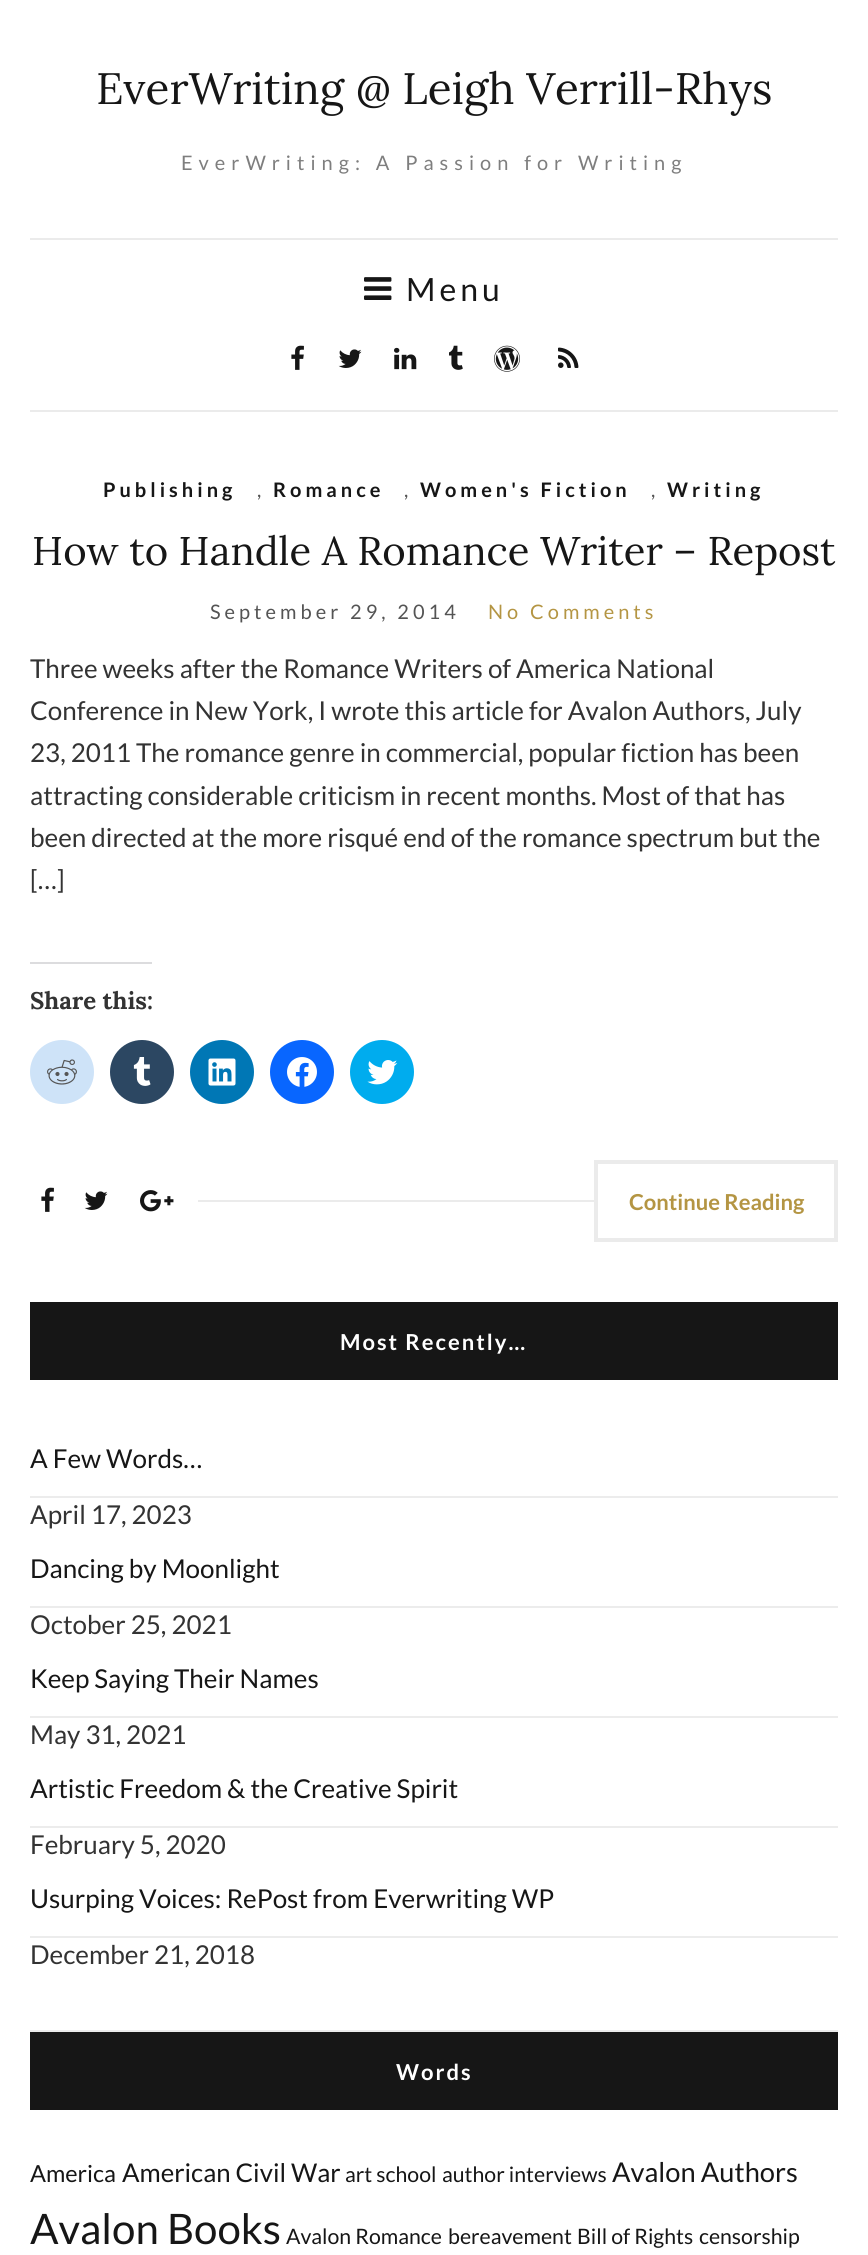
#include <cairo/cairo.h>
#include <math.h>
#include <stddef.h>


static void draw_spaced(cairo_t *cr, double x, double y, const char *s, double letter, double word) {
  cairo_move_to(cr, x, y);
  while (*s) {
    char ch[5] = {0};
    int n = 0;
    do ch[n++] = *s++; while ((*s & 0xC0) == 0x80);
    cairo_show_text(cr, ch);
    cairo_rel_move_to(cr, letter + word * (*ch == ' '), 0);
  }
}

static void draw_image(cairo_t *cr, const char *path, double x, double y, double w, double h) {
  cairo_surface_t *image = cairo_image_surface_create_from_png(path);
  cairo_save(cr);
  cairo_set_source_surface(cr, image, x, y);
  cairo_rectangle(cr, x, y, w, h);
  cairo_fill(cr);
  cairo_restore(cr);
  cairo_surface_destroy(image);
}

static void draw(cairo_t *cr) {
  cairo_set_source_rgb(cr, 1, 1, 1);
  cairo_paint(cr);
  cairo_set_source_rgb(cr, 235 / 255.0, 235 / 255.0, 235 / 255.0);
  cairo_rectangle(cr, 30, 238, 808, 2);
  cairo_fill(cr);
  cairo_rectangle(cr, 30, 410, 808, 2);
  cairo_fill(cr);
  draw_image(cr, "images/1.png", 364, 277, 28, 23);
  draw_image(cr, "images/2.png", 291, 345, 13, 25);
  draw_image(cr, "images/3.png", 338, 349, 24, 19);
  draw_image(cr, "images/4.png", 394, 347, 23, 23);
  draw_image(cr, "images/5.png", 449, 345, 14, 25);
  draw_image(cr, "images/6.png", 494, 345, 26, 27);
  draw_image(cr, "images/7.png", 558, 347, 21, 21);
  cairo_set_source_rgb(cr, 220 / 255.0, 220 / 255.0, 222 / 255.0);
  cairo_rectangle(cr, 30, 962, 122, 2);
  cairo_fill(cr);
  cairo_set_source_rgb(cr, 206 / 255.0, 227 / 255.0, 248 / 255.0);
  cairo_arc(cr, 62, 1072, 32, 0, 2 * M_PI);
  cairo_fill(cr);
  draw_image(cr, "images/8.png", 47, 1059, 30, 26);
  cairo_set_source_rgb(cr, 44 / 255.0, 71 / 255.0, 98 / 255.0);
  cairo_arc(cr, 142, 1072, 32, 0, 2 * M_PI);
  cairo_fill(cr);
  draw_image(cr, "images/9.png", 133, 1057, 18, 29);
  cairo_set_source_rgb(cr, 0, 119 / 255.0, 181 / 255.0);
  cairo_arc(cr, 222, 1072, 32, 0, 2 * M_PI);
  cairo_fill(cr);
  draw_image(cr, "images/10.png", 208, 1058, 28, 28);
  cairo_set_source_rgb(cr, 8 / 255.0, 102 / 255.0, 1);
  cairo_arc(cr, 302, 1072, 32, 0, 2 * M_PI);
  cairo_fill(cr);
  draw_image(cr, "images/11.png", 287, 1057, 30, 30);
  cairo_set_source_rgb(cr, 0, 172 / 255.0, 238 / 255.0);
  cairo_arc(cr, 382, 1072, 32, 0, 2 * M_PI);
  cairo_fill(cr);
  draw_image(cr, "images/12.png", 367, 1060, 31, 25);
  draw_image(cr, "images/2.png", 41, 1187, 13, 25);
  draw_image(cr, "images/3.png", 84, 1191, 24, 19);
  draw_image(cr, "images/13.png", 140, 1190, 34, 22);
  cairo_set_source_rgb(cr, 235 / 255.0, 235 / 255.0, 235 / 255.0);
  cairo_rectangle(cr, 198, 1200, 396, 2);
  cairo_fill(cr);
  cairo_rectangle(cr, 596, 1162, 240, 78);
  cairo_set_line_width(cr, 4);
  cairo_stroke(cr);
  cairo_rectangle(cr, 30, 2030, 808, 2);
  cairo_fill(cr);
  cairo_set_source_rgb(cr, 22 / 255.0, 22 / 255.0, 22 / 255.0);
  cairo_rectangle(cr, 30, 1302, 808, 78);
  cairo_fill(cr);
  cairo_set_source_rgb(cr, 236 / 255.0, 236 / 255.0, 236 / 255.0);
  cairo_rectangle(cr, 30, 1496, 808, 2);
  cairo_fill(cr);
  cairo_rectangle(cr, 30, 1606, 808, 2);
  cairo_fill(cr);
  cairo_rectangle(cr, 30, 1716, 808, 2);
  cairo_fill(cr);
  cairo_rectangle(cr, 30, 1826, 808, 2);
  cairo_fill(cr);
  cairo_rectangle(cr, 30, 1936, 808, 2);
  cairo_fill(cr);
  cairo_set_source_rgb(cr, 22 / 255.0, 22 / 255.0, 22 / 255.0);
  cairo_rectangle(cr, 30, 2032, 808, 78);
  cairo_fill(cr);
  cairo_select_font_face(cr, "Lora", CAIRO_FONT_SLANT_NORMAL, CAIRO_FONT_WEIGHT_NORMAL);
  cairo_set_font_size(cr, 44);
  cairo_move_to(cr, 96, 104);
  cairo_show_text(cr, "EverWriting @ Leigh Verrill-Rhys");
  cairo_select_font_face(cr, "Lato", CAIRO_FONT_SLANT_NORMAL, CAIRO_FONT_WEIGHT_NORMAL);
  cairo_set_font_size(cr, 20);
  cairo_set_source_rgb(cr, 126 / 255.0, 126 / 255.0, 126 / 255.0);
  draw_spaced(cr, 181, 170, "EverWriting: A Passion for Writing", 6, 0);
  cairo_set_font_size(cr, 32);
  cairo_set_source_rgb(cr, 22 / 255.0, 22 / 255.0, 22 / 255.0);
  draw_spaced(cr, 406, 301, "Menu", 4, 0);
  cairo_select_font_face(cr, "Lato", CAIRO_FONT_SLANT_NORMAL, CAIRO_FONT_WEIGHT_BOLD);
  cairo_set_font_size(cr, 20);
  draw_spaced(cr, 103, 497, "Publishing", 4, 0);
  cairo_select_font_face(cr, "Lato", CAIRO_FONT_SLANT_NORMAL, CAIRO_FONT_WEIGHT_NORMAL);
  cairo_set_source_rgb(cr, 84 / 255.0, 84 / 255.0, 84 / 255.0);
  draw_spaced(cr, 257, 497, ",", 4, 0);
  cairo_select_font_face(cr, "Lato", CAIRO_FONT_SLANT_NORMAL, CAIRO_FONT_WEIGHT_BOLD);
  cairo_set_source_rgb(cr, 22 / 255.0, 22 / 255.0, 22 / 255.0);
  draw_spaced(cr, 273, 497, "Romance", 4, 0);
  cairo_select_font_face(cr, "Lato", CAIRO_FONT_SLANT_NORMAL, CAIRO_FONT_WEIGHT_NORMAL);
  cairo_set_source_rgb(cr, 84 / 255.0, 84 / 255.0, 84 / 255.0);
  draw_spaced(cr, 404, 497, ",", 4, 0);
  cairo_select_font_face(cr, "Lato", CAIRO_FONT_SLANT_NORMAL, CAIRO_FONT_WEIGHT_BOLD);
  cairo_set_source_rgb(cr, 22 / 255.0, 22 / 255.0, 22 / 255.0);
  draw_spaced(cr, 420, 497, "Women's Fiction", 4, 0);
  cairo_select_font_face(cr, "Lato", CAIRO_FONT_SLANT_NORMAL, CAIRO_FONT_WEIGHT_NORMAL);
  cairo_set_source_rgb(cr, 84 / 255.0, 84 / 255.0, 84 / 255.0);
  draw_spaced(cr, 651, 497, ",", 4, 0);
  cairo_select_font_face(cr, "Lato", CAIRO_FONT_SLANT_NORMAL, CAIRO_FONT_WEIGHT_BOLD);
  cairo_set_source_rgb(cr, 22 / 255.0, 22 / 255.0, 22 / 255.0);
  draw_spaced(cr, 667, 497, "Writing", 4, 0);
  cairo_select_font_face(cr, "Lora", CAIRO_FONT_SLANT_NORMAL, CAIRO_FONT_WEIGHT_NORMAL);
  cairo_set_font_size(cr, 40);
  cairo_move_to(cr, 32, 565);
  cairo_show_text(cr, "How to Handle A Romance Writer – Repost");
  cairo_select_font_face(cr, "Lato", CAIRO_FONT_SLANT_NORMAL, CAIRO_FONT_WEIGHT_NORMAL);
  cairo_set_font_size(cr, 20);
  cairo_set_source_rgb(cr, 84 / 255.0, 84 / 255.0, 84 / 255.0);
  draw_spaced(cr, 210, 619, "September 29, 2014", 4, 0);
  cairo_set_source_rgb(cr, 180 / 255.0, 149 / 255.0, 67 / 255.0);
  draw_spaced(cr, 488, 619, "No Comments", 4, 0);
  cairo_set_font_size(cr, 26);
  cairo_set_source_rgb(cr, 51 / 255.0, 51 / 255.0, 51 / 255.0);
  cairo_move_to(cr, 30, 678);
  cairo_show_text(cr, "Three weeks after the Romance Writers of America National");
  cairo_move_to(cr, 30, 720);
  cairo_show_text(cr, "Conference in New York, I wrote this article for Avalon Authors, July");
  cairo_move_to(cr, 30, 762);
  cairo_show_text(cr, "23, 2011 The romance genre in commercial, popular fiction has been");
  cairo_move_to(cr, 30, 805);
  cairo_show_text(cr, "attracting considerable criticism in recent months. Most of that has");
  cairo_move_to(cr, 30, 847);
  cairo_show_text(cr, "been directed at the more risqué end of the romance spectrum but the");
  cairo_move_to(cr, 30, 889);
  cairo_show_text(cr, "[…]");
  cairo_select_font_face(cr, "Lora", CAIRO_FONT_SLANT_NORMAL, CAIRO_FONT_WEIGHT_BOLD);
  cairo_set_font_size(cr, 24);
  cairo_move_to(cr, 30, 1009);
  cairo_show_text(cr, "Share this:");
  cairo_select_font_face(cr, "Lato", CAIRO_FONT_SLANT_NORMAL, CAIRO_FONT_WEIGHT_BOLD);
  cairo_set_font_size(cr, 22);
  cairo_set_source_rgb(cr, 180 / 255.0, 149 / 255.0, 67 / 255.0);
  cairo_move_to(cr, 629, 1210);
  cairo_show_text(cr, "Continue Reading");
  cairo_set_source_rgb(cr, 1, 1, 1);
  draw_spaced(cr, 340, 1350, "Most Recently…", 2, 0);
  cairo_select_font_face(cr, "Lato", CAIRO_FONT_SLANT_NORMAL, CAIRO_FONT_WEIGHT_NORMAL);
  cairo_set_font_size(cr, 26);
  cairo_set_source_rgb(cr, 22 / 255.0, 22 / 255.0, 22 / 255.0);
  cairo_move_to(cr, 30, 1468);
  cairo_show_text(cr, "A Few Words…");
  cairo_set_source_rgb(cr, 51 / 255.0, 51 / 255.0, 51 / 255.0);
  cairo_move_to(cr, 30, 1524);
  cairo_show_text(cr, "April 17, 2023");
  cairo_set_source_rgb(cr, 22 / 255.0, 22 / 255.0, 22 / 255.0);
  cairo_move_to(cr, 30, 1578);
  cairo_show_text(cr, "Dancing by Moonlight");
  cairo_set_source_rgb(cr, 51 / 255.0, 51 / 255.0, 51 / 255.0);
  cairo_move_to(cr, 30, 1634);
  cairo_show_text(cr, "October 25, 2021");
  cairo_set_source_rgb(cr, 22 / 255.0, 22 / 255.0, 22 / 255.0);
  cairo_move_to(cr, 30, 1688);
  cairo_show_text(cr, "Keep Saying Their Names");
  cairo_set_source_rgb(cr, 51 / 255.0, 51 / 255.0, 51 / 255.0);
  cairo_move_to(cr, 30, 1744);
  cairo_show_text(cr, "May 31, 2021");
  cairo_set_source_rgb(cr, 22 / 255.0, 22 / 255.0, 22 / 255.0);
  cairo_move_to(cr, 30, 1798);
  cairo_show_text(cr, "Artistic Freedom & the Creative Spirit");
  cairo_set_source_rgb(cr, 51 / 255.0, 51 / 255.0, 51 / 255.0);
  cairo_move_to(cr, 30, 1854);
  cairo_show_text(cr, "February 5, 2020");
  cairo_set_source_rgb(cr, 22 / 255.0, 22 / 255.0, 22 / 255.0);
  cairo_move_to(cr, 30, 1908);
  cairo_show_text(cr, "Usurping Voices: RePost from Everwriting WP");
  cairo_set_source_rgb(cr, 51 / 255.0, 51 / 255.0, 51 / 255.0);
  cairo_move_to(cr, 30, 1964);
  cairo_show_text(cr, "December 21, 2018");
  cairo_select_font_face(cr, "Lato", CAIRO_FONT_SLANT_NORMAL, CAIRO_FONT_WEIGHT_BOLD);
  cairo_set_font_size(cr, 22);
  cairo_set_source_rgb(cr, 1, 1, 1);
  draw_spaced(cr, 396, 2080, "Words", 2, 0);
  cairo_select_font_face(cr, "Lato", CAIRO_FONT_SLANT_NORMAL, CAIRO_FONT_WEIGHT_NORMAL);
  cairo_set_font_size(cr, 23.5);
  cairo_set_source_rgb(cr, 22 / 255.0, 22 / 255.0, 22 / 255.0);
  cairo_move_to(cr, 30, 2182);
  cairo_show_text(cr, "America");
  cairo_set_font_size(cr, 25.75);
  cairo_move_to(cr, 122, 2182);
  cairo_show_text(cr, "American Civil War");
  cairo_set_font_size(cr, 21.25);
  cairo_move_to(cr, 345, 2182);
  cairo_show_text(cr, "art school");
  cairo_move_to(cr, 442, 2182);
  cairo_show_text(cr, "author interviews");
  cairo_set_font_size(cr, 27.25);
  cairo_move_to(cr, 612, 2182);
  cairo_show_text(cr, "Avalon Authors");
  cairo_set_font_size(cr, 42);
  cairo_move_to(cr, 30, 2244);
  cairo_show_text(cr, "Avalon Books");
  cairo_set_font_size(cr, 21.25);
  cairo_move_to(cr, 286, 2244);
  cairo_show_text(cr, "Avalon Romance");
  cairo_move_to(cr, 448, 2244);
  cairo_show_text(cr, "bereavement");
  cairo_move_to(cr, 577, 2244);
  cairo_show_text(cr, "Bill of Rights");
  cairo_move_to(cr, 699, 2244);
  cairo_show_text(cr, "censorship");
}

int main(void) {
  cairo_surface_t *surface = cairo_image_surface_create(CAIRO_FORMAT_RGB24, 868, 2255);
  cairo_t *cr = cairo_create(surface);
  cairo_font_options_t *options = cairo_font_options_create();
  cairo_font_options_set_hint_metrics(options, CAIRO_HINT_METRICS_OFF);
  cairo_font_options_set_hint_style(options, CAIRO_HINT_STYLE_NONE);
  cairo_set_font_options(cr, options);
  cairo_set_miter_limit(cr, 4);
  draw(cr);
  cairo_surface_write_to_png(surface, "out.png");
  cairo_font_options_destroy(options);
  cairo_destroy(cr);
  cairo_surface_destroy(surface);
  return 0;
}
